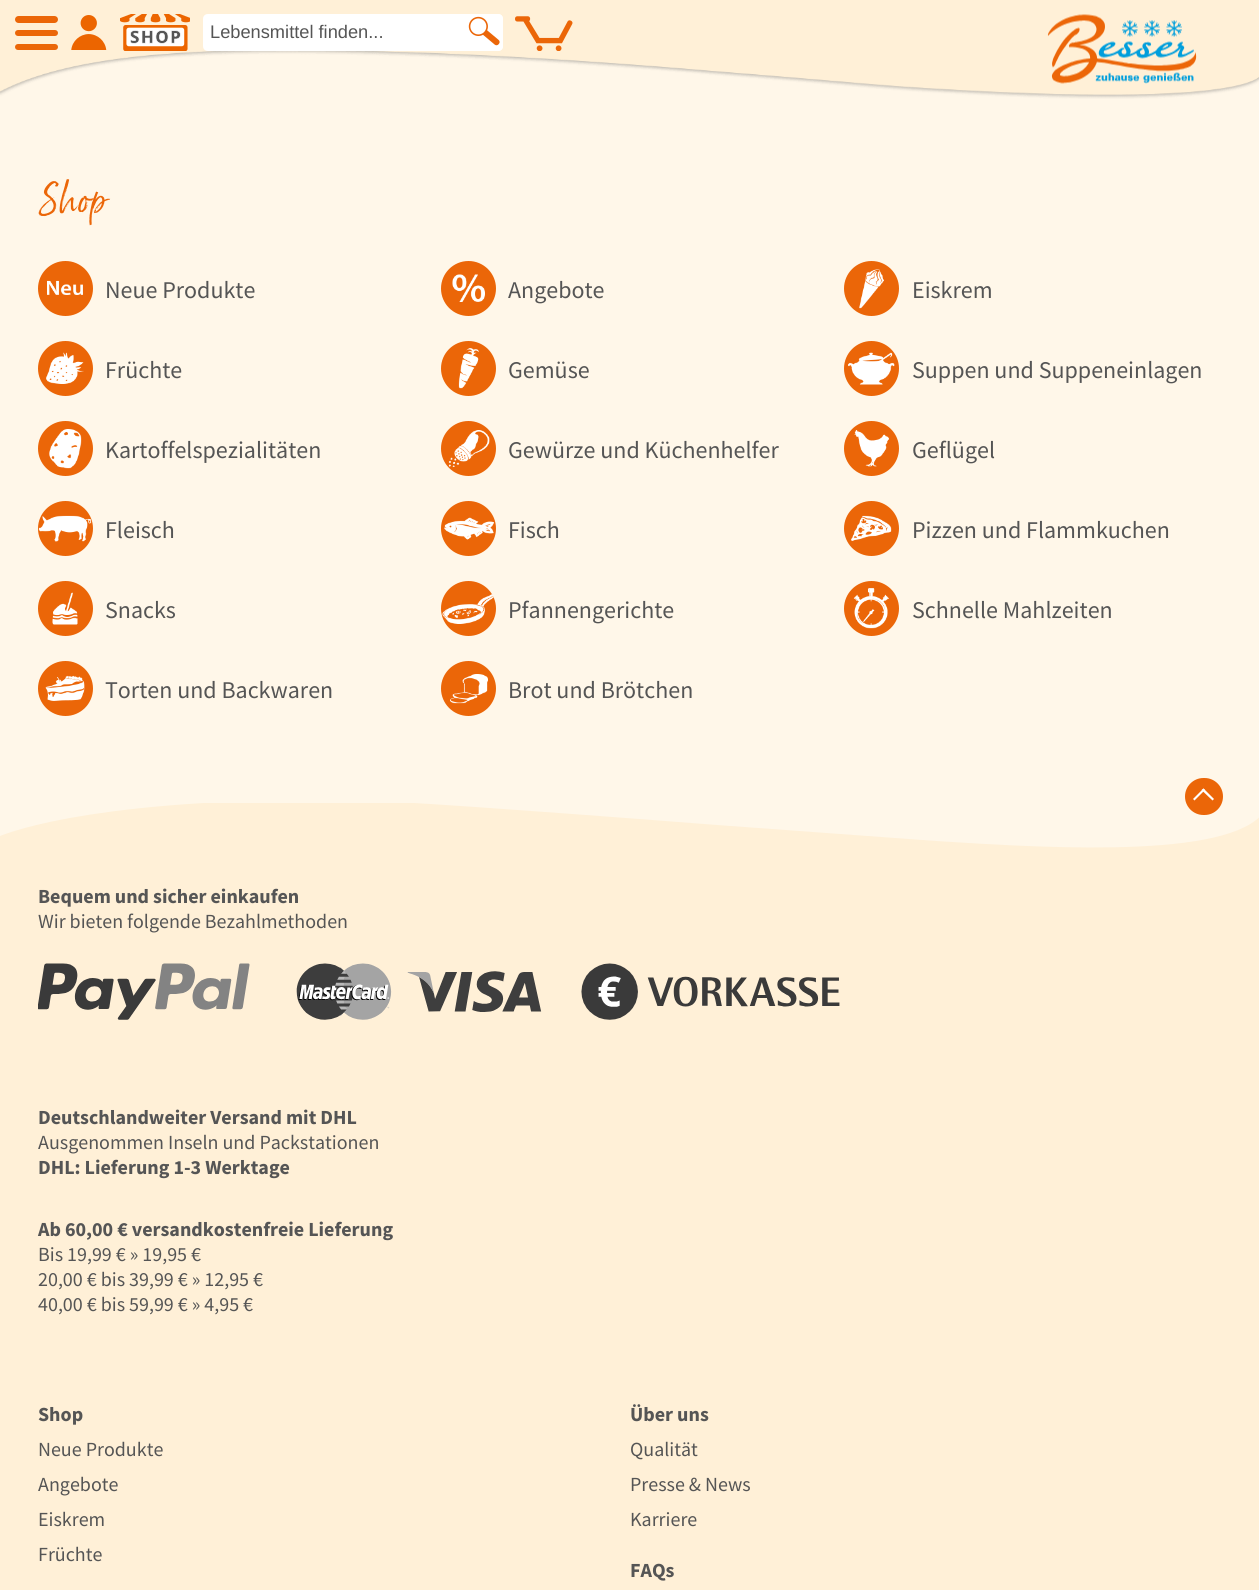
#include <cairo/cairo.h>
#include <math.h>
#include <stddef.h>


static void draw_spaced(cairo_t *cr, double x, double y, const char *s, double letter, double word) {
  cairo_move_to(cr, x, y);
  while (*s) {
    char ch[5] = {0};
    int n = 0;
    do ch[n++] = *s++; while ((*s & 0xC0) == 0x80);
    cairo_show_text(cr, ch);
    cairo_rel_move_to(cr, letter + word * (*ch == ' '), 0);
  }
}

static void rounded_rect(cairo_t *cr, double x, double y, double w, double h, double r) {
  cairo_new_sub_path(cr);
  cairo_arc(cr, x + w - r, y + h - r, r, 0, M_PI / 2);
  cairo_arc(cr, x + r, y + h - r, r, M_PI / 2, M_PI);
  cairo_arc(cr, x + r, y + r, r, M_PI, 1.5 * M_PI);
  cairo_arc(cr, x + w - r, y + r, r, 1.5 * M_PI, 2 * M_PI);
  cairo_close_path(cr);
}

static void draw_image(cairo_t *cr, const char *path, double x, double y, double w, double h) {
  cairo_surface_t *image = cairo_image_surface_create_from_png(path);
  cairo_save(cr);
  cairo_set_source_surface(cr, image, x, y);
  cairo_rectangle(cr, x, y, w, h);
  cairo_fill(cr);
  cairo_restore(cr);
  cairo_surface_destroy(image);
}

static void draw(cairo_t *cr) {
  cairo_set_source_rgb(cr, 1, 247 / 255.0, 233 / 255.0);
  cairo_paint(cr);
  draw_image(cr, "images/1.png", 0, 0, 1259, 99);
  cairo_set_source_rgb(cr, 235 / 255.0, 102 / 255.0, 8 / 255.0);
  rounded_rect(cr, 15, 30, 43, 6, 3);
  cairo_fill(cr);
  rounded_rect(cr, 15, 16, 43, 7, 3.5);
  cairo_fill(cr);
  rounded_rect(cr, 15, 44, 43, 6, 3);
  cairo_fill(cr);
  draw_image(cr, "images/2.png", 71, 15, 36, 35);
  draw_image(cr, "images/3.png", 120, 14, 70, 37);
  cairo_set_source_rgb(cr, 1, 1, 1);
  cairo_new_path(cr);
  cairo_move_to(cr, 208, 14);
  cairo_line_to(cr, 465, 14);
  cairo_line_to(cr, 465, 51);
  cairo_line_to(cr, 208, 51);
  cairo_curve_to(cr, 205, 51, 203, 49, 203, 46);
  cairo_line_to(cr, 203, 19);
  cairo_curve_to(cr, 203, 16, 205, 14, 208, 14);
  cairo_close_path(cr);
  cairo_fill(cr);
  cairo_new_path(cr);
  cairo_move_to(cr, 465, 14);
  cairo_line_to(cr, 498, 14);
  cairo_curve_to(cr, 501, 14, 503, 16, 503, 19);
  cairo_line_to(cr, 503, 46);
  cairo_curve_to(cr, 503, 49, 501, 51, 498, 51);
  cairo_line_to(cr, 465, 51);
  cairo_close_path(cr);
  cairo_fill(cr);
  draw_image(cr, "images/4.png", 468, 16, 32, 30);
  cairo_new_path(cr);
  cairo_move_to(cr, 465.5, 14.5);
  cairo_line_to(cr, 498, 14.5);
  cairo_curve_to(cr, 500.5, 14.5, 502.5, 16.5, 502.5, 19);
  cairo_line_to(cr, 502.5, 46);
  cairo_curve_to(cr, 502.5, 48.5, 500.5, 50.5, 498, 50.5);
  cairo_line_to(cr, 465.5, 50.5);
  cairo_close_path(cr);
  cairo_set_line_width(cr, 1);
  cairo_stroke(cr);
  draw_image(cr, "images/5.png", 515, 16, 58, 35);
  draw_image(cr, "images/6.png", 1047, 14, 150, 70);
  cairo_set_source_rgb(cr, 235 / 255.0, 102 / 255.0, 8 / 255.0);
  cairo_arc(cr, 65.5, 288.5, 27.5, 0, 2 * M_PI);
  cairo_fill(cr);
  draw_image(cr, "images/7.png", 47, 280, 36, 15);
  cairo_arc(cr, 468.5, 288.5, 27.5, 0, 2 * M_PI);
  cairo_fill(cr);
  draw_image(cr, "images/8.png", 452, 274, 33, 28);
  cairo_arc(cr, 871.5, 288.5, 27.5, 0, 2 * M_PI);
  cairo_fill(cr);
  draw_image(cr, "images/9.png", 859, 269, 25, 40);
  cairo_arc(cr, 65.5, 368.5, 27.5, 0, 2 * M_PI);
  cairo_fill(cr);
  draw_image(cr, "images/10.png", 46, 352, 38, 32);
  cairo_arc(cr, 468.5, 368.5, 27.5, 0, 2 * M_PI);
  cairo_fill(cr);
  draw_image(cr, "images/11.png", 458, 348, 21, 41);
  cairo_arc(cr, 871.5, 368.5, 27.5, 0, 2 * M_PI);
  cairo_fill(cr);
  draw_image(cr, "images/12.png", 848, 352, 47, 33);
  cairo_arc(cr, 65.5, 448.5, 27.5, 0, 2 * M_PI);
  cairo_fill(cr);
  draw_image(cr, "images/13.png", 49, 429, 33, 40);
  cairo_arc(cr, 468.5, 448.5, 27.5, 0, 2 * M_PI);
  cairo_fill(cr);
  draw_image(cr, "images/14.png", 448, 430, 42, 37);
  cairo_arc(cr, 871.5, 448.5, 27.5, 0, 2 * M_PI);
  cairo_fill(cr);
  draw_image(cr, "images/15.png", 854, 430, 35, 37);
  cairo_arc(cr, 65.5, 528.5, 27.5, 0, 2 * M_PI);
  cairo_fill(cr);
  draw_image(cr, "images/16.png", 38, 515, 54, 27);
  cairo_arc(cr, 468.5, 528.5, 27.5, 0, 2 * M_PI);
  cairo_fill(cr);
  draw_image(cr, "images/17.png", 444, 517, 50, 23);
  cairo_arc(cr, 871.5, 528.5, 27.5, 0, 2 * M_PI);
  cairo_fill(cr);
  draw_image(cr, "images/18.png", 851, 515, 41, 26);
  cairo_arc(cr, 65.5, 608.5, 27.5, 0, 2 * M_PI);
  cairo_fill(cr);
  draw_image(cr, "images/19.png", 52, 592, 26, 33);
  cairo_arc(cr, 468.5, 608.5, 27.5, 0, 2 * M_PI);
  cairo_fill(cr);
  draw_image(cr, "images/20.png", 442, 594, 52, 30);
  cairo_arc(cr, 871.5, 608.5, 27.5, 0, 2 * M_PI);
  cairo_fill(cr);
  draw_image(cr, "images/21.png", 853, 588, 36, 41);
  cairo_arc(cr, 65.5, 688.5, 27.5, 0, 2 * M_PI);
  cairo_fill(cr);
  draw_image(cr, "images/22.png", 45, 675, 40, 26);
  cairo_arc(cr, 468.5, 688.5, 27.5, 0, 2 * M_PI);
  cairo_fill(cr);
  draw_image(cr, "images/23.png", 450, 674, 38, 30);
  cairo_save(cr);
  cairo_rectangle(cr, 0, 803, 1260, 63);
  cairo_clip(cr);
  cairo_set_source_rgb(cr, 1, 240 / 255.0, 215 / 255.0);
  cairo_new_path(cr);
  cairo_move_to(cr, -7, 865);
  cairo_line_to(cr, 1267, 865);
  cairo_line_to(cr, 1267, 807);
  cairo_curve_to(cr, 1242, 859, 1060, 849, 936, 841);
  cairo_line_to(cr, 717, 825);
  cairo_curve_to(cr, 486, 807, 414, 803, 414, 803);
  cairo_curve_to(cr, 363, 801, 317, 799, 277, 800);
  cairo_curve_to(cr, 57, 805, -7, 839, -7, 839);
  cairo_close_path(cr);
  cairo_fill(cr);
  cairo_restore(cr);
  rounded_rect(cr, 1185, 778, 38, 37, 18.5);
  cairo_fill(cr);
  cairo_set_source_rgb(cr, 1, 1, 1);
  cairo_new_path(cr);
  cairo_move_to(cr, 1203.5, 788.5);
  cairo_line_to(cr, 1214, 799);
  cairo_line_to(cr, 1212.5, 800.5);
  cairo_line_to(cr, 1201.5, 790);
  cairo_close_path(cr);
  cairo_fill(cr);
  cairo_new_path(cr);
  cairo_move_to(cr, 1203.5, 788.5);
  cairo_line_to(cr, 1205, 790);
  cairo_line_to(cr, 1194.5, 800.5);
  cairo_line_to(cr, 1193, 799);
  cairo_close_path(cr);
  cairo_fill(cr);
  cairo_set_source_rgb(cr, 1, 240 / 255.0, 215 / 255.0);
  cairo_rectangle(cr, 0, 865, 1259, 725);
  cairo_fill(cr);
  draw_image(cr, "images/24.png", 38, 963, 802, 57);
  cairo_select_font_face(cr, "Liberation Sans", CAIRO_FONT_SLANT_NORMAL, CAIRO_FONT_WEIGHT_NORMAL);
  cairo_set_font_size(cr, 18.25);
  cairo_set_source_rgb(cr, 85 / 255.0, 85 / 255.0, 85 / 255.0);
  cairo_move_to(cr, 210, 38);
  cairo_show_text(cr, "Lebensmittel finden...");
  cairo_select_font_face(cr, "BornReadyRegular", CAIRO_FONT_SLANT_NORMAL, CAIRO_FONT_WEIGHT_NORMAL);
  cairo_set_font_size(cr, 36);
  cairo_set_source_rgb(cr, 235 / 255.0, 102 / 255.0, 8 / 255.0);
  draw_spaced(cr, 38, 210, "Shop", 1, 0);
  cairo_select_font_face(cr, "Source Sans Pro", CAIRO_FONT_SLANT_NORMAL, CAIRO_FONT_WEIGHT_NORMAL);
  cairo_set_font_size(cr, 24);
  cairo_set_source_rgb(cr, 85 / 255.0, 85 / 255.0, 85 / 255.0);
  cairo_move_to(cr, 105, 298);
  cairo_show_text(cr, "Neue Produkte");
  cairo_move_to(cr, 508, 298);
  cairo_show_text(cr, "Angebote");
  cairo_move_to(cr, 912, 298);
  cairo_show_text(cr, "Eiskrem");
  cairo_move_to(cr, 105, 378);
  cairo_show_text(cr, "Früchte");
  cairo_move_to(cr, 508, 378);
  cairo_show_text(cr, "Gemüse");
  cairo_move_to(cr, 912, 378);
  cairo_show_text(cr, "Suppen und Suppeneinlagen");
  cairo_move_to(cr, 105, 458);
  cairo_show_text(cr, "Kartoffelspezialitäten");
  cairo_move_to(cr, 508, 458);
  cairo_show_text(cr, "Gewürze und Küchenhelfer");
  cairo_move_to(cr, 912, 458);
  cairo_show_text(cr, "Geflügel");
  cairo_move_to(cr, 105, 538);
  cairo_show_text(cr, "Fleisch");
  cairo_move_to(cr, 508, 538);
  cairo_show_text(cr, "Fisch");
  cairo_move_to(cr, 912, 538);
  cairo_show_text(cr, "Pizzen und Flammkuchen");
  cairo_move_to(cr, 105, 618);
  cairo_show_text(cr, "Snacks");
  cairo_move_to(cr, 508, 618);
  cairo_show_text(cr, "Pfannengerichte");
  cairo_move_to(cr, 912, 618);
  cairo_show_text(cr, "Schnelle Mahlzeiten");
  cairo_move_to(cr, 105, 698);
  cairo_show_text(cr, "Torten und Backwaren");
  cairo_move_to(cr, 508, 698);
  cairo_show_text(cr, "Brot und Brötchen");
  cairo_select_font_face(cr, "Source Sans Pro", CAIRO_FONT_SLANT_NORMAL, CAIRO_FONT_WEIGHT_BOLD);
  cairo_set_font_size(cr, 20);
  cairo_move_to(cr, 38, 903);
  cairo_show_text(cr, "Bequem und sicher einkaufen");
  cairo_select_font_face(cr, "Source Sans Pro", CAIRO_FONT_SLANT_NORMAL, CAIRO_FONT_WEIGHT_NORMAL);
  cairo_move_to(cr, 38, 928);
  cairo_show_text(cr, "Wir bieten folgende Bezahlmethoden");
  cairo_select_font_face(cr, "Source Sans Pro", CAIRO_FONT_SLANT_NORMAL, CAIRO_FONT_WEIGHT_BOLD);
  cairo_move_to(cr, 38, 1124);
  cairo_show_text(cr, "Deutschlandweiter Versand mit DHL");
  cairo_select_font_face(cr, "Source Sans Pro", CAIRO_FONT_SLANT_NORMAL, CAIRO_FONT_WEIGHT_NORMAL);
  cairo_move_to(cr, 38, 1149);
  cairo_show_text(cr, "Ausgenommen Inseln und Packstationen");
  cairo_select_font_face(cr, "Source Sans Pro", CAIRO_FONT_SLANT_NORMAL, CAIRO_FONT_WEIGHT_BOLD);
  cairo_move_to(cr, 38, 1174);
  cairo_show_text(cr, "DHL: Lieferung 1-3 Werktage");
  cairo_move_to(cr, 38, 1236);
  cairo_show_text(cr, "Ab 60,00 € versandkostenfreie Lieferung");
  cairo_select_font_face(cr, "Source Sans Pro", CAIRO_FONT_SLANT_NORMAL, CAIRO_FONT_WEIGHT_NORMAL);
  cairo_move_to(cr, 38, 1261);
  cairo_show_text(cr, "Bis 19,99 € » 19,95 €");
  cairo_move_to(cr, 38, 1286);
  cairo_show_text(cr, "20,00 € bis 39,99 € » 12,95 €");
  cairo_move_to(cr, 38, 1311);
  cairo_show_text(cr, "40,00 € bis 59,99 € » 4,95 €");
  cairo_select_font_face(cr, "Source Sans Pro", CAIRO_FONT_SLANT_NORMAL, CAIRO_FONT_WEIGHT_BOLD);
  cairo_move_to(cr, 38, 1421);
  cairo_show_text(cr, "Shop");
  cairo_select_font_face(cr, "Source Sans Pro", CAIRO_FONT_SLANT_NORMAL, CAIRO_FONT_WEIGHT_NORMAL);
  cairo_move_to(cr, 38, 1456);
  cairo_show_text(cr, "Neue Produkte");
  cairo_move_to(cr, 38, 1491);
  cairo_show_text(cr, "Angebote");
  cairo_move_to(cr, 38, 1526);
  cairo_show_text(cr, "Eiskrem");
  cairo_move_to(cr, 38, 1561);
  cairo_show_text(cr, "Früchte");
  cairo_select_font_face(cr, "Source Sans Pro", CAIRO_FONT_SLANT_NORMAL, CAIRO_FONT_WEIGHT_BOLD);
  cairo_move_to(cr, 630, 1421);
  cairo_show_text(cr, "Über uns");
  cairo_select_font_face(cr, "Source Sans Pro", CAIRO_FONT_SLANT_NORMAL, CAIRO_FONT_WEIGHT_NORMAL);
  cairo_move_to(cr, 630, 1456);
  cairo_show_text(cr, "Qualität");
  cairo_move_to(cr, 630, 1491);
  cairo_show_text(cr, "Presse & News");
  cairo_move_to(cr, 630, 1526);
  cairo_show_text(cr, "Karriere");
  cairo_select_font_face(cr, "Source Sans Pro", CAIRO_FONT_SLANT_NORMAL, CAIRO_FONT_WEIGHT_BOLD);
  cairo_move_to(cr, 630, 1577);
  cairo_show_text(cr, "FAQs");
}

int main(void) {
  cairo_surface_t *surface = cairo_image_surface_create(CAIRO_FORMAT_RGB24, 1259, 1590);
  cairo_t *cr = cairo_create(surface);
  cairo_font_options_t *options = cairo_font_options_create();
  cairo_font_options_set_hint_metrics(options, CAIRO_HINT_METRICS_OFF);
  cairo_font_options_set_hint_style(options, CAIRO_HINT_STYLE_NONE);
  cairo_set_font_options(cr, options);
  cairo_set_miter_limit(cr, 4);
  draw(cr);
  cairo_surface_write_to_png(surface, "out.png");
  cairo_font_options_destroy(options);
  cairo_destroy(cr);
  cairo_surface_destroy(surface);
  return 0;
}
